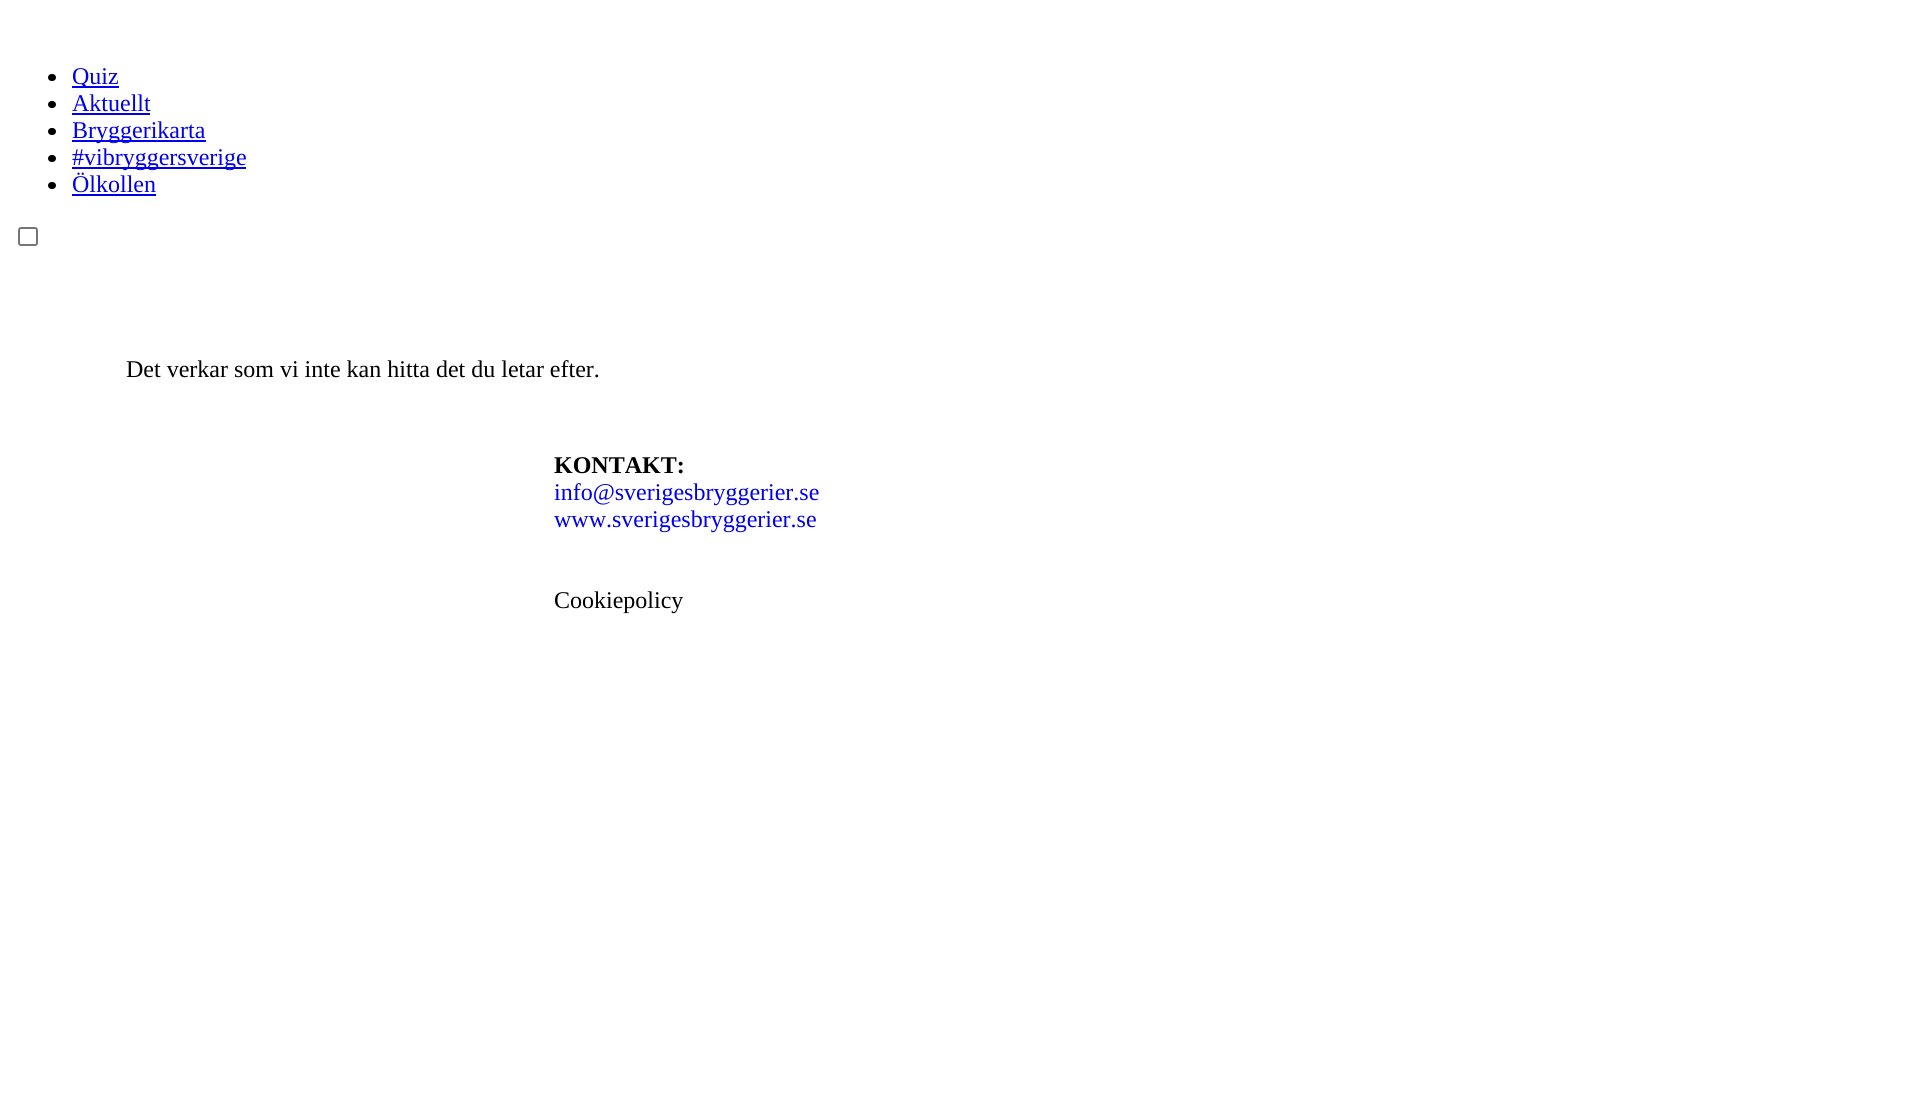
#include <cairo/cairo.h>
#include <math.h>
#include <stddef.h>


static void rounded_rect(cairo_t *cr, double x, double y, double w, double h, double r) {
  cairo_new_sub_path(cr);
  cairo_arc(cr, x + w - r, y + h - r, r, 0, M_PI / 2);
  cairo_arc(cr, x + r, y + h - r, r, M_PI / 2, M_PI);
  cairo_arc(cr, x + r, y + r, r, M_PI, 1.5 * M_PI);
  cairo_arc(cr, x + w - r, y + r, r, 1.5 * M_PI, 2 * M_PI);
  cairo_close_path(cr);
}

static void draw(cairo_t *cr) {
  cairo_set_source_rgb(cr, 1, 1, 1);
  cairo_paint(cr);
  cairo_set_source_rgb(cr, 0, 0, 0);
  rounded_rect(cr, 48, 74, 8, 7, 3.5);
  cairo_fill(cr);
  cairo_set_source_rgb(cr, 0, 0, 238 / 255.0);
  cairo_rectangle(cr, 72, 86, 47, 2);
  cairo_fill(cr);
  cairo_set_source_rgb(cr, 0, 0, 0);
  rounded_rect(cr, 48, 101, 8, 7, 3.5);
  cairo_fill(cr);
  cairo_set_source_rgb(cr, 0, 0, 238 / 255.0);
  cairo_rectangle(cr, 72, 113, 78, 2);
  cairo_fill(cr);
  cairo_set_source_rgb(cr, 0, 0, 0);
  rounded_rect(cr, 48, 128, 8, 7, 3.5);
  cairo_fill(cr);
  cairo_set_source_rgb(cr, 0, 0, 238 / 255.0);
  cairo_rectangle(cr, 72, 140, 134, 2);
  cairo_fill(cr);
  cairo_set_source_rgb(cr, 0, 0, 0);
  rounded_rect(cr, 48, 155, 8, 7, 3.5);
  cairo_fill(cr);
  cairo_set_source_rgb(cr, 0, 0, 238 / 255.0);
  cairo_rectangle(cr, 72, 167, 174, 2);
  cairo_fill(cr);
  cairo_set_source_rgb(cr, 0, 0, 0);
  rounded_rect(cr, 48, 182, 8, 7, 3.5);
  cairo_fill(cr);
  cairo_set_source_rgb(cr, 0, 0, 238 / 255.0);
  cairo_rectangle(cr, 72, 194, 84, 2);
  cairo_fill(cr);
  rounded_rect(cr, 19, 228, 18, 17, 2);
  cairo_set_source_rgb(cr, 118 / 255.0, 118 / 255.0, 118 / 255.0);
  cairo_stroke(cr);
  cairo_select_font_face(cr, "Liberation Serif", CAIRO_FONT_SLANT_NORMAL, CAIRO_FONT_WEIGHT_NORMAL);
  cairo_set_font_size(cr, 24);
  cairo_set_source_rgb(cr, 0, 0, 238 / 255.0);
  cairo_move_to(cr, 72, 84);
  cairo_show_text(cr, "Quiz");
  cairo_move_to(cr, 72, 111);
  cairo_show_text(cr, "Aktuellt");
  cairo_move_to(cr, 72, 138);
  cairo_show_text(cr, "Bryggerikarta");
  cairo_move_to(cr, 72, 165);
  cairo_show_text(cr, "#vibryggersverige");
  cairo_move_to(cr, 72, 192);
  cairo_show_text(cr, "Ölkollen");
  cairo_set_source_rgb(cr, 0, 0, 0);
  cairo_move_to(cr, 126, 377);
  cairo_show_text(cr, "Det verkar som vi inte kan hitta det du letar efter.");
  cairo_select_font_face(cr, "Liberation Serif", CAIRO_FONT_SLANT_NORMAL, CAIRO_FONT_WEIGHT_BOLD);
  cairo_move_to(cr, 554, 473);
  cairo_show_text(cr, "KONTAKT:");
  cairo_select_font_face(cr, "Liberation Serif", CAIRO_FONT_SLANT_NORMAL, CAIRO_FONT_WEIGHT_NORMAL);
  cairo_set_source_rgb(cr, 0, 0, 238 / 255.0);
  cairo_move_to(cr, 554, 500);
  cairo_show_text(cr, "info@sverigesbryggerier.se");
  cairo_move_to(cr, 554, 527);
  cairo_show_text(cr, "www.sverigesbryggerier.se");
  cairo_set_source_rgb(cr, 0, 0, 0);
  cairo_move_to(cr, 554, 608);
  cairo_show_text(cr, "Cookiepolicy");
}

int main(void) {
  cairo_surface_t *surface = cairo_image_surface_create(CAIRO_FORMAT_RGB24, 1931, 1114);
  cairo_t *cr = cairo_create(surface);
  cairo_font_options_t *options = cairo_font_options_create();
  cairo_font_options_set_hint_metrics(options, CAIRO_HINT_METRICS_OFF);
  cairo_font_options_set_hint_style(options, CAIRO_HINT_STYLE_NONE);
  cairo_set_font_options(cr, options);
  cairo_set_miter_limit(cr, 4);
  draw(cr);
  cairo_surface_write_to_png(surface, "out.png");
  cairo_font_options_destroy(options);
  cairo_destroy(cr);
  cairo_surface_destroy(surface);
  return 0;
}
